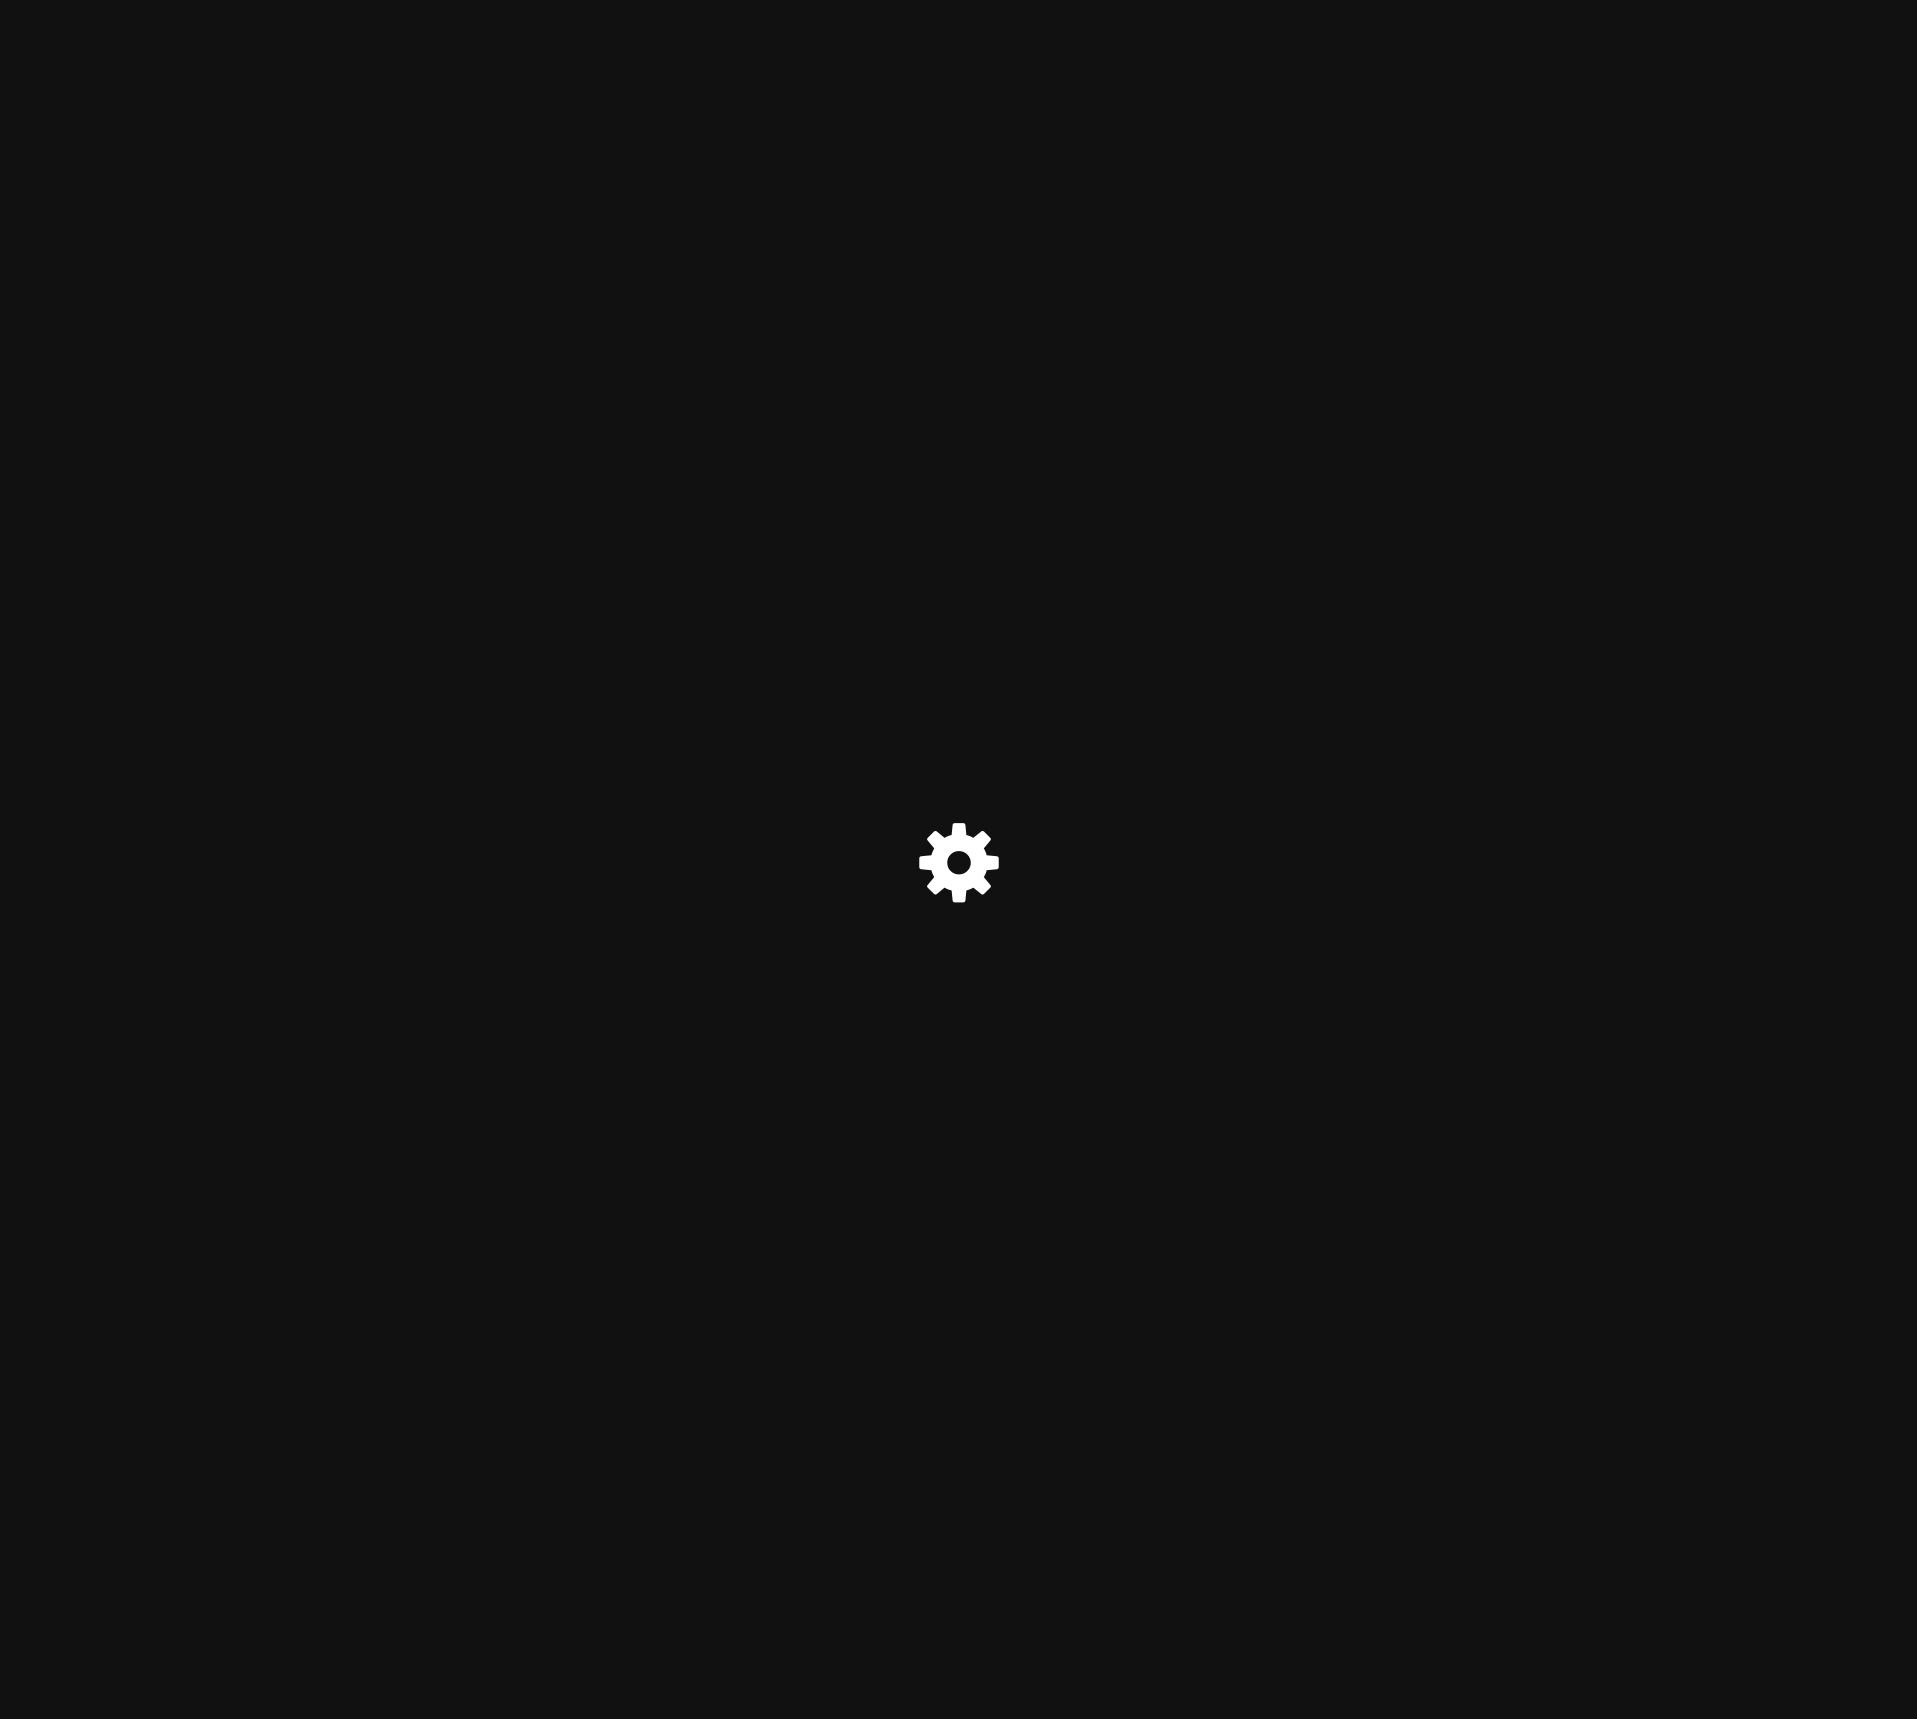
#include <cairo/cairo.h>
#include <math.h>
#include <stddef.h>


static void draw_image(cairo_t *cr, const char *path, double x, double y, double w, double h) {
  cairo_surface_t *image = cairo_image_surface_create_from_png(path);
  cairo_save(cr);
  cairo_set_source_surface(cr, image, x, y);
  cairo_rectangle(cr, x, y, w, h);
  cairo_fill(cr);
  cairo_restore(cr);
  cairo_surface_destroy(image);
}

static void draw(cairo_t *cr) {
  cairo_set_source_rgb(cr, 17 / 255.0, 17 / 255.0, 17 / 255.0);
  cairo_paint(cr);
  draw_image(cr, "images/1.png", 919, 823, 80, 80);
}

int main(void) {
  cairo_surface_t *surface = cairo_image_surface_create(CAIRO_FORMAT_RGB24, 1917, 1719);
  cairo_t *cr = cairo_create(surface);
  cairo_font_options_t *options = cairo_font_options_create();
  cairo_font_options_set_hint_metrics(options, CAIRO_HINT_METRICS_OFF);
  cairo_font_options_set_hint_style(options, CAIRO_HINT_STYLE_NONE);
  cairo_set_font_options(cr, options);
  cairo_set_miter_limit(cr, 4);
  draw(cr);
  cairo_surface_write_to_png(surface, "out.png");
  cairo_font_options_destroy(options);
  cairo_destroy(cr);
  cairo_surface_destroy(surface);
  return 0;
}
